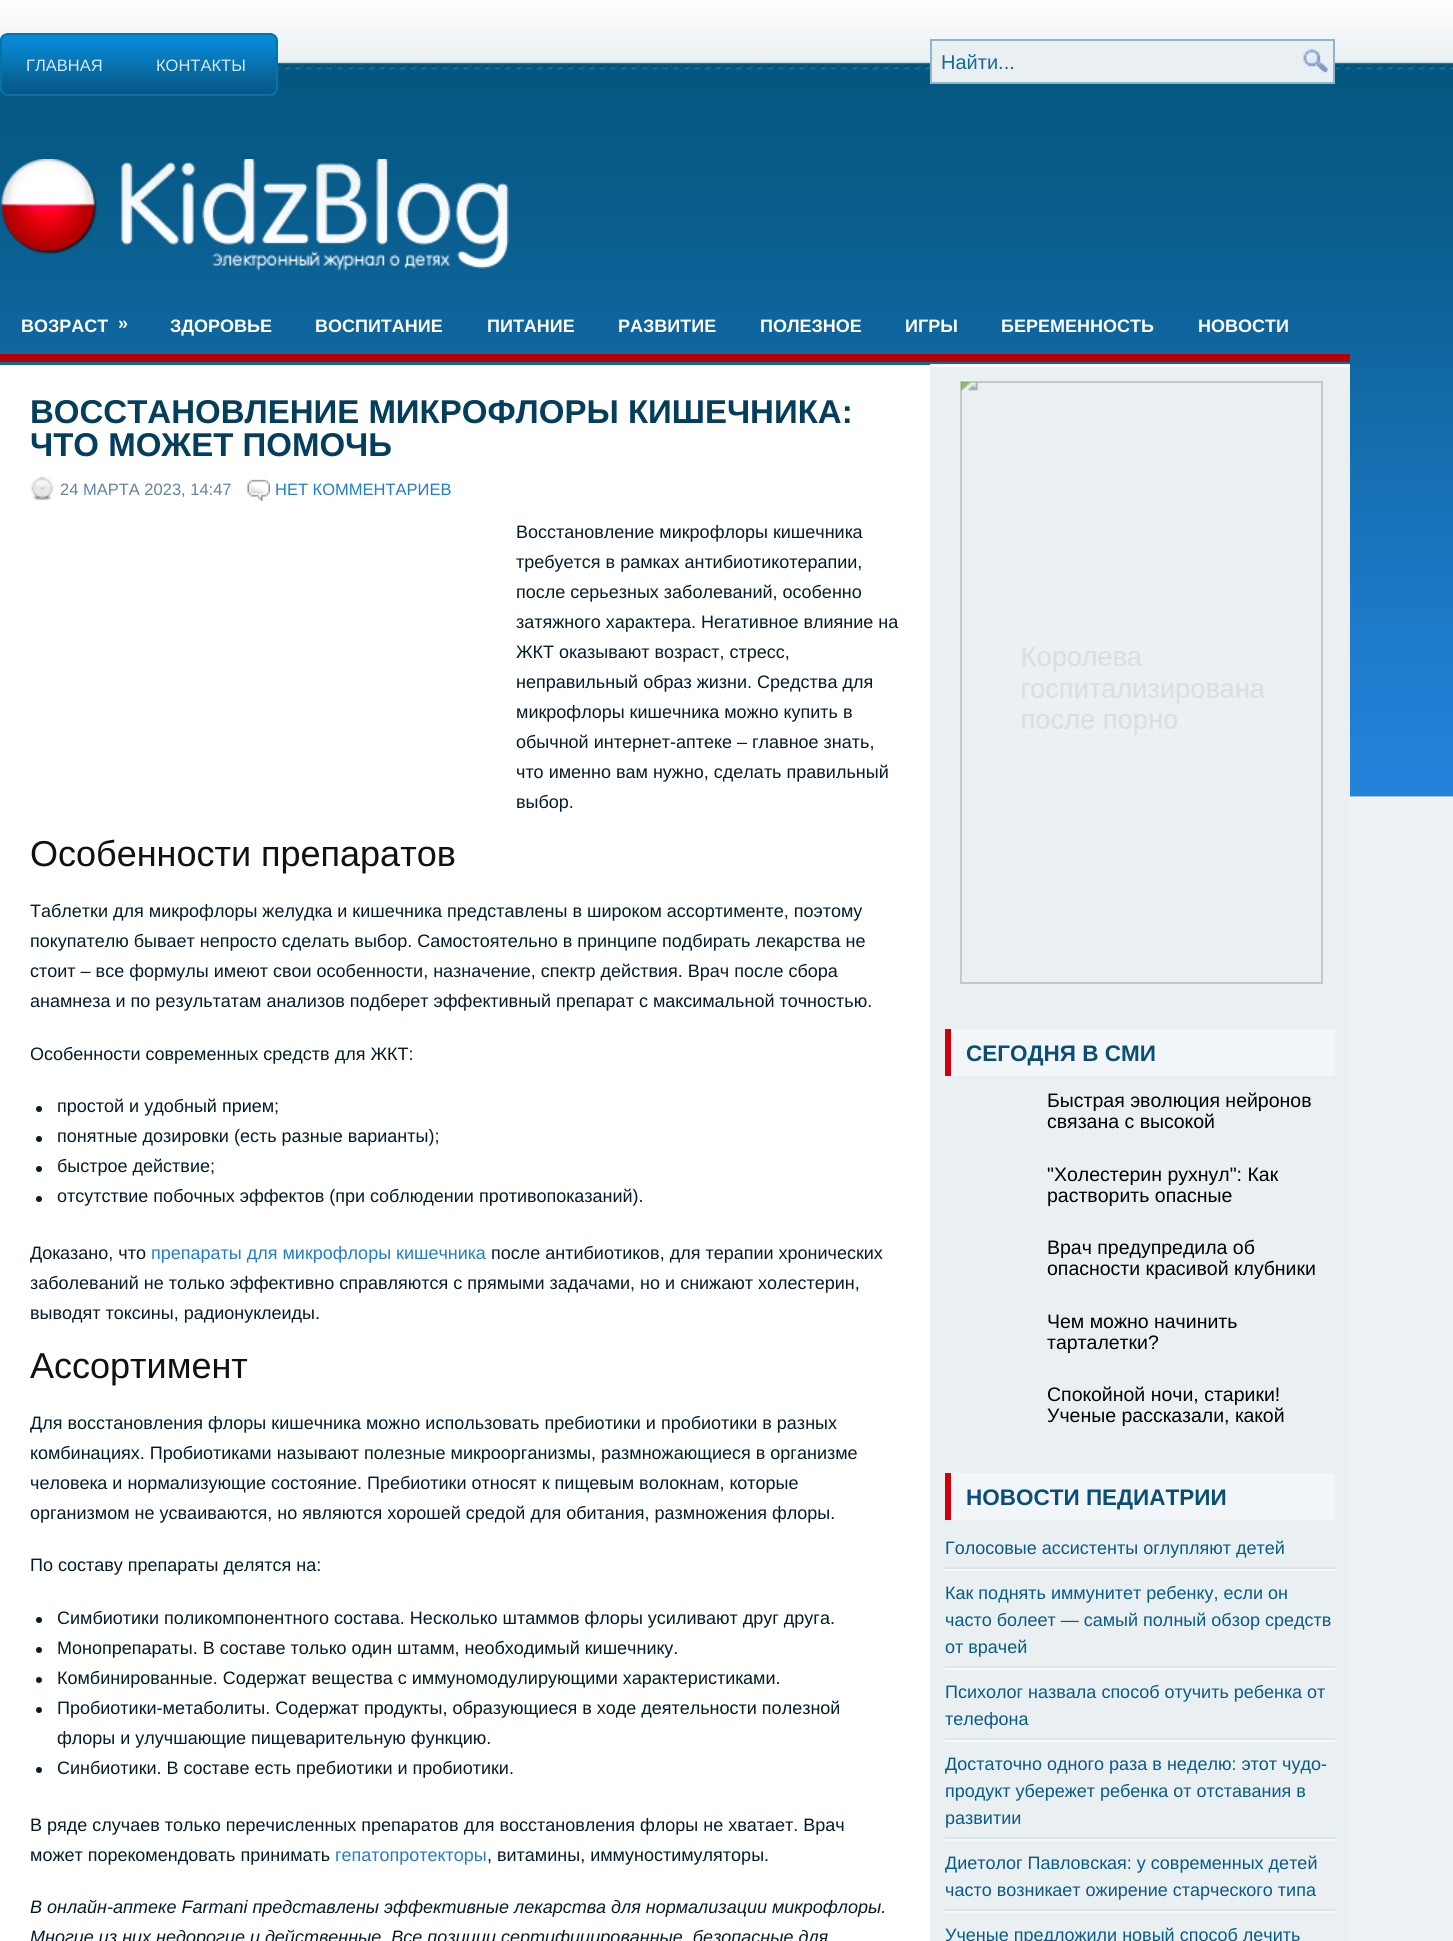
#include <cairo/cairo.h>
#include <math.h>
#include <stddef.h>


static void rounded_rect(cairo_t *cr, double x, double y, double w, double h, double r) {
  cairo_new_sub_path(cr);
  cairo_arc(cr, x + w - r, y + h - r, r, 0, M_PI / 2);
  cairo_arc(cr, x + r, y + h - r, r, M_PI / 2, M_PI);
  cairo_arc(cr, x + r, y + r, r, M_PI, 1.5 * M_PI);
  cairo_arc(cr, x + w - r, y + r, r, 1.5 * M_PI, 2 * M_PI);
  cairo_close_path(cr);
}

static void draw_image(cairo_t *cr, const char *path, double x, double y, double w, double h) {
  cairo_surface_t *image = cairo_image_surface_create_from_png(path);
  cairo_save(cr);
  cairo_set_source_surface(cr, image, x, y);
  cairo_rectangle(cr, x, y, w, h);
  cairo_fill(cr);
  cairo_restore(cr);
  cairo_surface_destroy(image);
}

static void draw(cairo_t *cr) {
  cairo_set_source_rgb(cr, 237 / 255.0, 241 / 255.0, 244 / 255.0);
  cairo_paint(cr);
  draw_image(cr, "images/1.png", 0, 0, 1453, 798);
  draw_image(cr, "images/2.png", 0, 34, 278, 59);
  rounded_rect(cr, 1, 34, 276, 61, 7);
  cairo_set_source_rgb(cr, 5 / 255.0, 115 / 255.0, 170 / 255.0);
  cairo_stroke(cr);
  cairo_set_source_rgb(cr, 234 / 255.0, 239 / 255.0, 242 / 255.0);
  cairo_rectangle(cr, 931, 40, 403, 43);
  cairo_fill_preserve(cr);
  cairo_set_source_rgb(cr, 141 / 255.0, 182 / 255.0, 202 / 255.0);
  cairo_stroke(cr);
  draw_image(cr, "images/3.png", 1303, 49, 25, 24);
  draw_image(cr, "images/4.png", 1, 159, 508, 112);
  cairo_set_source_rgb(cr, 178 / 255.0, 2 / 255.0, 5 / 255.0);
  cairo_rectangle(cr, 0, 354, 1350, 8);
  cairo_fill(cr);
  cairo_set_source_rgb(cr, 1, 1, 1);
  cairo_rectangle(cr, 0, 367, 930, 1574);
  cairo_fill(cr);
  cairo_set_source_rgb(cr, 234 / 255.0, 239 / 255.0, 242 / 255.0);
  cairo_rectangle(cr, 930, 364, 420, 1577);
  cairo_fill(cr);
  cairo_set_source_rgb(cr, 1, 1, 1);
  cairo_rectangle(cr, 0, 365, 1350, 2);
  cairo_fill(cr);
  draw_image(cr, "images/5.png", 31, 477, 23, 24);
  draw_image(cr, "images/6.png", 247, 479, 23, 22);
  cairo_set_source_rgb(cr, 5 / 255.0, 27 / 255.0, 41 / 255.0);
  cairo_arc(cr, 39, 1109, 3, 0, 2 * M_PI);
  cairo_fill(cr);
  cairo_arc(cr, 39, 1139, 3, 0, 2 * M_PI);
  cairo_fill(cr);
  cairo_arc(cr, 39, 1169, 3, 0, 2 * M_PI);
  cairo_fill(cr);
  cairo_arc(cr, 39, 1199, 3, 0, 2 * M_PI);
  cairo_fill(cr);
  cairo_arc(cr, 39, 1620, 3, 0, 2 * M_PI);
  cairo_fill(cr);
  cairo_arc(cr, 39, 1650, 3, 0, 2 * M_PI);
  cairo_fill(cr);
  cairo_arc(cr, 39, 1680, 3, 0, 2 * M_PI);
  cairo_fill(cr);
  cairo_arc(cr, 39, 1710, 3, 0, 2 * M_PI);
  cairo_fill(cr);
  cairo_arc(cr, 39, 1770, 3, 0, 2 * M_PI);
  cairo_fill(cr);
  cairo_rectangle(cr, 961, 382, 361, 601);
  cairo_set_source_rgb(cr, 199 / 255.0, 199 / 255.0, 199 / 255.0);
  cairo_stroke(cr);
  draw_image(cr, "images/7.png", 961, 382, 304, 353);
  cairo_set_source_rgb(cr, 243 / 255.0, 246 / 255.0, 248 / 255.0);
  cairo_rectangle(cr, 951, 1029, 384, 47);
  cairo_fill(cr);
  cairo_set_source_rgb(cr, 206 / 255.0, 0, 13 / 255.0);
  cairo_rectangle(cr, 945, 1029, 6, 47);
  cairo_fill(cr);
  cairo_set_source_rgb(cr, 243 / 255.0, 246 / 255.0, 248 / 255.0);
  cairo_rectangle(cr, 951, 1473, 384, 47);
  cairo_fill(cr);
  cairo_set_source_rgb(cr, 206 / 255.0, 0, 13 / 255.0);
  cairo_rectangle(cr, 945, 1473, 6, 47);
  cairo_fill(cr);
  draw_image(cr, "images/8.png", 945, 1567, 390, 4);
  draw_image(cr, "images/8.png", 945, 1666, 390, 4);
  draw_image(cr, "images/8.png", 945, 1738, 390, 4);
  draw_image(cr, "images/8.png", 945, 1837, 390, 4);
  draw_image(cr, "images/8.png", 945, 1909, 390, 4);
  cairo_select_font_face(cr, "Liberation Sans", CAIRO_FONT_SLANT_NORMAL, CAIRO_FONT_WEIGHT_NORMAL);
  cairo_set_font_size(cr, 16.5);
  cairo_set_source_rgb(cr, 212 / 255.0, 232 / 255.0, 242 / 255.0);
  cairo_move_to(cr, 26, 71);
  cairo_show_text(cr, "ГЛАВНАЯ");
  cairo_move_to(cr, 156, 71);
  cairo_show_text(cr, "КОНТАКТЫ");
  cairo_set_font_size(cr, 20);
  cairo_set_source_rgb(cr, 19 / 255.0, 106 / 255.0, 150 / 255.0);
  cairo_move_to(cr, 941, 69);
  cairo_show_text(cr, "Найти...");
  cairo_select_font_face(cr, "Liberation Sans", CAIRO_FONT_SLANT_NORMAL, CAIRO_FONT_WEIGHT_BOLD);
  cairo_set_font_size(cr, 18);
  cairo_set_source_rgb(cr, 1, 1, 1);
  cairo_move_to(cr, 21, 332);
  cairo_show_text(cr, "ВОЗРАСТ");
  cairo_save(cr);
  cairo_rectangle(cr, 119, 297, 28, 35);
  cairo_clip(cr);
  cairo_move_to(cr, 118, 329);
  cairo_show_text(cr, "»");
  cairo_restore(cr);
  cairo_move_to(cr, 170, 332);
  cairo_show_text(cr, "ЗДОРОВЬЕ");
  cairo_move_to(cr, 315, 332);
  cairo_show_text(cr, "ВОСПИТАНИЕ");
  cairo_move_to(cr, 487, 332);
  cairo_show_text(cr, "ПИТАНИЕ");
  cairo_move_to(cr, 618, 332);
  cairo_show_text(cr, "РАЗВИТИЕ");
  cairo_move_to(cr, 760, 332);
  cairo_show_text(cr, "ПОЛЕЗНОЕ");
  cairo_move_to(cr, 905, 332);
  cairo_show_text(cr, "ИГРЫ");
  cairo_move_to(cr, 1001, 332);
  cairo_show_text(cr, "БЕРЕМЕННОСТЬ");
  cairo_move_to(cr, 1198, 332);
  cairo_show_text(cr, "НОВОСТИ");
  cairo_set_font_size(cr, 33);
  cairo_set_source_rgb(cr, 3 / 255.0, 62 / 255.0, 92 / 255.0);
  cairo_move_to(cr, 30, 423);
  cairo_show_text(cr, "ВОССТАНОВЛЕНИЕ МИКРОФЛОРЫ КИШЕЧНИКА:");
  cairo_move_to(cr, 30, 456);
  cairo_show_text(cr, "ЧТО МОЖЕТ ПОМОЧЬ");
  cairo_select_font_face(cr, "Liberation Sans", CAIRO_FONT_SLANT_NORMAL, CAIRO_FONT_WEIGHT_NORMAL);
  cairo_set_font_size(cr, 16.5);
  cairo_set_source_rgb(cr, 98 / 255.0, 132 / 255.0, 159 / 255.0);
  cairo_move_to(cr, 60, 495);
  cairo_show_text(cr, "24 МАРТА 2023, 14:47");
  cairo_set_source_rgb(cr, 31 / 255.0, 124 / 255.0, 207 / 255.0);
  cairo_move_to(cr, 275, 495);
  cairo_show_text(cr, "НЕТ КОММЕНТАРИЕВ");
  cairo_set_font_size(cr, 18);
  cairo_set_source_rgb(cr, 5 / 255.0, 27 / 255.0, 41 / 255.0);
  cairo_move_to(cr, 516, 538);
  cairo_show_text(cr, "Восстановление микрофлоры кишечника");
  cairo_move_to(cr, 516, 568);
  cairo_show_text(cr, "требуется в рамках антибиотикотерапии,");
  cairo_move_to(cr, 516, 598);
  cairo_show_text(cr, "после серьезных заболеваний, особенно");
  cairo_move_to(cr, 516, 628);
  cairo_show_text(cr, "затяжного характера. Негативное влияние на");
  cairo_move_to(cr, 516, 658);
  cairo_show_text(cr, "ЖКТ оказывают возраст, стресс,");
  cairo_move_to(cr, 516, 688);
  cairo_show_text(cr, "неправильный образ жизни. Средства для");
  cairo_move_to(cr, 516, 718);
  cairo_show_text(cr, "микрофлоры кишечника можно купить в");
  cairo_move_to(cr, 516, 748);
  cairo_show_text(cr, "обычной интернет-аптеке – главное знать,");
  cairo_move_to(cr, 516, 778);
  cairo_show_text(cr, "что именно вам нужно, сделать правильный");
  cairo_move_to(cr, 516, 808);
  cairo_show_text(cr, "выбор.");
  cairo_set_font_size(cr, 36);
  cairo_set_source_rgb(cr, 17 / 255.0, 17 / 255.0, 17 / 255.0);
  cairo_move_to(cr, 30, 866);
  cairo_show_text(cr, "Особенности препаратов");
  cairo_set_font_size(cr, 18);
  cairo_set_source_rgb(cr, 5 / 255.0, 27 / 255.0, 41 / 255.0);
  cairo_move_to(cr, 30, 917);
  cairo_show_text(cr, "Таблетки для микрофлоры желудка и кишечника представлены в широком ассортименте, поэтому");
  cairo_move_to(cr, 30, 947);
  cairo_show_text(cr, "покупателю бывает непросто сделать выбор. Самостоятельно в принципе подбирать лекарства не");
  cairo_move_to(cr, 30, 977);
  cairo_show_text(cr, "стоит – все формулы имеют свои особенности, назначение, спектр действия. Врач после сбора");
  cairo_move_to(cr, 30, 1007);
  cairo_show_text(cr, "анамнеза и по результатам анализов подберет эффективный препарат с максимальной точностью.");
  cairo_move_to(cr, 30, 1060);
  cairo_show_text(cr, "Особенности современных средств для ЖКТ:");
  cairo_move_to(cr, 57, 1112);
  cairo_show_text(cr, "простой и удобный прием;");
  cairo_move_to(cr, 57, 1142);
  cairo_show_text(cr, "понятные дозировки (есть разные варианты);");
  cairo_move_to(cr, 57, 1172);
  cairo_show_text(cr, "быстрое действие;");
  cairo_move_to(cr, 57, 1202);
  cairo_show_text(cr, "отсутствие побочных эффектов (при соблюдении противопоказаний).");
  cairo_move_to(cr, 30, 1259);
  cairo_show_text(cr, "Доказано, что");
  cairo_set_source_rgb(cr, 31 / 255.0, 124 / 255.0, 207 / 255.0);
  cairo_move_to(cr, 151, 1259);
  cairo_show_text(cr, "препараты для микрофлоры кишечника");
  cairo_set_source_rgb(cr, 5 / 255.0, 27 / 255.0, 41 / 255.0);
  cairo_move_to(cr, 491, 1259);
  cairo_show_text(cr, "после антибиотиков, для терапии хронических");
  cairo_move_to(cr, 30, 1289);
  cairo_show_text(cr, "заболеваний не только эффективно справляются с прямыми задачами, но и снижают холестерин,");
  cairo_move_to(cr, 30, 1319);
  cairo_show_text(cr, "выводят токсины, радионуклеиды.");
  cairo_set_font_size(cr, 36);
  cairo_set_source_rgb(cr, 17 / 255.0, 17 / 255.0, 17 / 255.0);
  cairo_move_to(cr, 30, 1378);
  cairo_show_text(cr, "Ассортимент");
  cairo_set_font_size(cr, 18);
  cairo_set_source_rgb(cr, 5 / 255.0, 27 / 255.0, 41 / 255.0);
  cairo_move_to(cr, 30, 1429);
  cairo_show_text(cr, "Для восстановления флоры кишечника можно использовать пребиотики и пробиотики в разных");
  cairo_move_to(cr, 30, 1459);
  cairo_show_text(cr, "комбинациях. Пробиотиками называют полезные микроорганизмы, размножающиеся в организме");
  cairo_move_to(cr, 30, 1489);
  cairo_show_text(cr, "человека и нормализующие состояние. Пребиотики относят к пищевым волокнам, которые");
  cairo_move_to(cr, 30, 1519);
  cairo_show_text(cr, "организмом не усваиваются, но являются хорошей средой для обитания, размножения флоры.");
  cairo_move_to(cr, 30, 1571);
  cairo_show_text(cr, "По составу препараты делятся на:");
  cairo_move_to(cr, 57, 1624);
  cairo_show_text(cr, "Симбиотики поликомпонентного состава. Несколько штаммов флоры усиливают друг друга.");
  cairo_move_to(cr, 57, 1654);
  cairo_show_text(cr, "Монопрепараты. В составе только один штамм, необходимый кишечнику.");
  cairo_move_to(cr, 57, 1684);
  cairo_show_text(cr, "Комбинированные. Содержат вещества с иммуномодулирующими характеристиками.");
  cairo_move_to(cr, 57, 1714);
  cairo_show_text(cr, "Пробиотики-метаболиты. Содержат продукты, образующиеся в ходе деятельности полезной");
  cairo_move_to(cr, 57, 1744);
  cairo_show_text(cr, "флоры и улучшающие пищеварительную функцию.");
  cairo_move_to(cr, 57, 1774);
  cairo_show_text(cr, "Синбиотики. В составе есть пребиотики и пробиотики.");
  cairo_move_to(cr, 30, 1831);
  cairo_show_text(cr, "В ряде случаев только перечисленных препаратов для восстановления флоры не хватает. Врач");
  cairo_move_to(cr, 30, 1861);
  cairo_show_text(cr, "может порекомендовать принимать");
  cairo_set_source_rgb(cr, 31 / 255.0, 124 / 255.0, 207 / 255.0);
  cairo_move_to(cr, 335, 1861);
  cairo_show_text(cr, "гепатопротекторы");
  cairo_set_source_rgb(cr, 5 / 255.0, 27 / 255.0, 41 / 255.0);
  cairo_move_to(cr, 487, 1861);
  cairo_show_text(cr, ", витамины, иммуностимуляторы.");
  cairo_select_font_face(cr, "Liberation Sans", CAIRO_FONT_SLANT_ITALIC, CAIRO_FONT_WEIGHT_NORMAL);
  cairo_move_to(cr, 30, 1913);
  cairo_show_text(cr, "В онлайн-аптеке Farmani представлены эффективные лекарства для нормализации микрофлоры.");
  cairo_move_to(cr, 30, 1943);
  cairo_show_text(cr, "Многие из них недорогие и действенные. Все позиции сертифицированные, безопасные для");
  cairo_select_font_face(cr, "Liberation Sans", CAIRO_FONT_SLANT_NORMAL, CAIRO_FONT_WEIGHT_BOLD);
  cairo_set_font_size(cr, 22.5);
  cairo_set_source_rgb(cr, 9 / 255.0, 79 / 255.0, 117 / 255.0);
  cairo_move_to(cr, 966, 1061);
  cairo_show_text(cr, "СЕГОДНЯ В СМИ");
  cairo_select_font_face(cr, "Liberation Sans", CAIRO_FONT_SLANT_NORMAL, CAIRO_FONT_WEIGHT_NORMAL);
  cairo_set_font_size(cr, 19.5);
  cairo_set_source_rgb(cr, 0, 0, 0);
  cairo_move_to(cr, 1047, 1107);
  cairo_show_text(cr, "Быстрая эволюция нейронов");
  cairo_move_to(cr, 1047, 1128);
  cairo_show_text(cr, "связана с высокой");
  cairo_move_to(cr, 1047, 1181);
  cairo_show_text(cr, "\"Холестерин рухнул\": Как");
  cairo_move_to(cr, 1047, 1202);
  cairo_show_text(cr, "растворить опасные");
  cairo_move_to(cr, 1047, 1254);
  cairo_show_text(cr, "Врач предупредила об");
  cairo_move_to(cr, 1047, 1275);
  cairo_show_text(cr, "опасности красивой клубники");
  cairo_move_to(cr, 1047, 1328);
  cairo_show_text(cr, "Чем можно начинить");
  cairo_move_to(cr, 1047, 1349);
  cairo_show_text(cr, "тарталетки?");
  cairo_move_to(cr, 1047, 1401);
  cairo_show_text(cr, "Спокойной ночи, старики!");
  cairo_move_to(cr, 1047, 1422);
  cairo_show_text(cr, "Ученые рассказали, какой");
  cairo_select_font_face(cr, "Liberation Sans", CAIRO_FONT_SLANT_NORMAL, CAIRO_FONT_WEIGHT_BOLD);
  cairo_set_font_size(cr, 22.5);
  cairo_set_source_rgb(cr, 9 / 255.0, 79 / 255.0, 117 / 255.0);
  cairo_move_to(cr, 966, 1505);
  cairo_show_text(cr, "НОВОСТИ ПЕДИАТРИИ");
  cairo_select_font_face(cr, "Liberation Sans", CAIRO_FONT_SLANT_NORMAL, CAIRO_FONT_WEIGHT_NORMAL);
  cairo_set_font_size(cr, 18);
  cairo_set_source_rgb(cr, 7 / 255.0, 91 / 255.0, 136 / 255.0);
  cairo_move_to(cr, 945, 1554);
  cairo_show_text(cr, "Голосовые ассистенты оглупляют детей");
  cairo_move_to(cr, 945, 1599);
  cairo_show_text(cr, "Как поднять иммунитет ребенку, если он");
  cairo_move_to(cr, 945, 1626);
  cairo_show_text(cr, "часто болеет — самый полный обзор средств");
  cairo_move_to(cr, 945, 1653);
  cairo_show_text(cr, "от врачей");
  cairo_move_to(cr, 945, 1698);
  cairo_show_text(cr, "Психолог назвала способ отучить ребенка от");
  cairo_move_to(cr, 945, 1725);
  cairo_show_text(cr, "телефона");
  cairo_move_to(cr, 945, 1770);
  cairo_show_text(cr, "Достаточно одного раза в неделю: этот чудо-");
  cairo_move_to(cr, 945, 1797);
  cairo_show_text(cr, "продукт убережет ребенка от отставания в");
  cairo_move_to(cr, 945, 1824);
  cairo_show_text(cr, "развитии");
  cairo_move_to(cr, 945, 1869);
  cairo_show_text(cr, "Диетолог Павловская: у современных детей");
  cairo_move_to(cr, 945, 1896);
  cairo_show_text(cr, "часто возникает ожирение старческого типа");
  cairo_move_to(cr, 945, 1941);
  cairo_show_text(cr, "Ученые предложили новый способ лечить");
}

int main(void) {
  cairo_surface_t *surface = cairo_image_surface_create(CAIRO_FORMAT_RGB24, 1453, 1941);
  cairo_t *cr = cairo_create(surface);
  cairo_font_options_t *options = cairo_font_options_create();
  cairo_font_options_set_hint_metrics(options, CAIRO_HINT_METRICS_OFF);
  cairo_font_options_set_hint_style(options, CAIRO_HINT_STYLE_NONE);
  cairo_set_font_options(cr, options);
  cairo_set_miter_limit(cr, 4);
  draw(cr);
  cairo_surface_write_to_png(surface, "out.png");
  cairo_font_options_destroy(options);
  cairo_destroy(cr);
  cairo_surface_destroy(surface);
  return 0;
}
